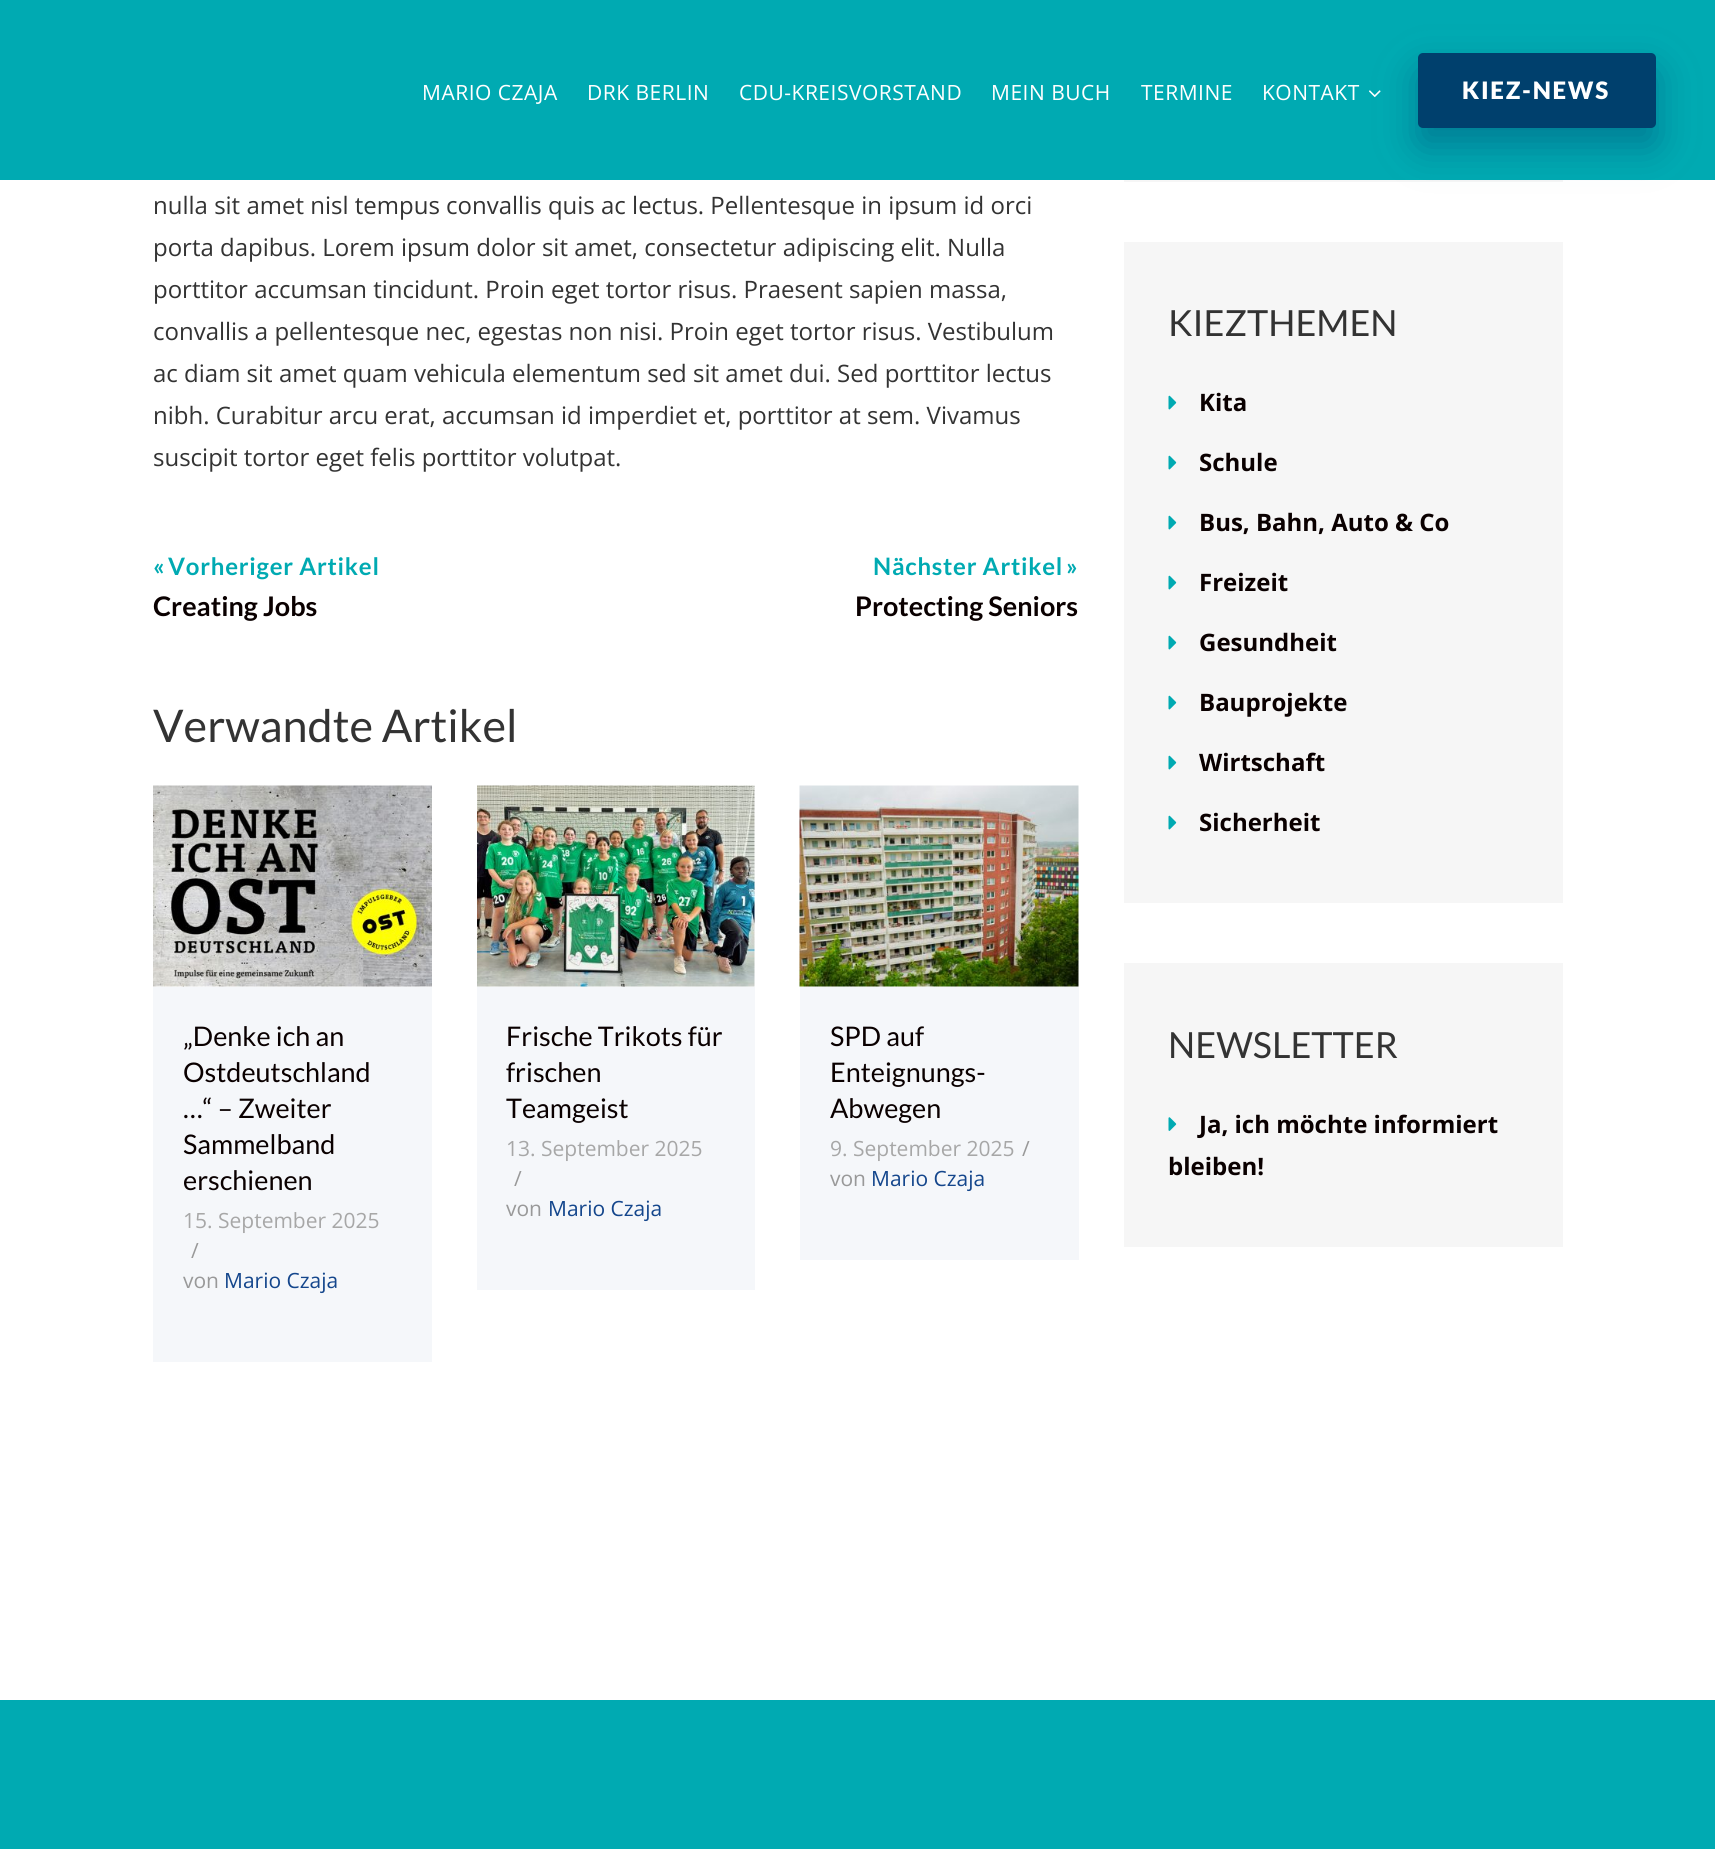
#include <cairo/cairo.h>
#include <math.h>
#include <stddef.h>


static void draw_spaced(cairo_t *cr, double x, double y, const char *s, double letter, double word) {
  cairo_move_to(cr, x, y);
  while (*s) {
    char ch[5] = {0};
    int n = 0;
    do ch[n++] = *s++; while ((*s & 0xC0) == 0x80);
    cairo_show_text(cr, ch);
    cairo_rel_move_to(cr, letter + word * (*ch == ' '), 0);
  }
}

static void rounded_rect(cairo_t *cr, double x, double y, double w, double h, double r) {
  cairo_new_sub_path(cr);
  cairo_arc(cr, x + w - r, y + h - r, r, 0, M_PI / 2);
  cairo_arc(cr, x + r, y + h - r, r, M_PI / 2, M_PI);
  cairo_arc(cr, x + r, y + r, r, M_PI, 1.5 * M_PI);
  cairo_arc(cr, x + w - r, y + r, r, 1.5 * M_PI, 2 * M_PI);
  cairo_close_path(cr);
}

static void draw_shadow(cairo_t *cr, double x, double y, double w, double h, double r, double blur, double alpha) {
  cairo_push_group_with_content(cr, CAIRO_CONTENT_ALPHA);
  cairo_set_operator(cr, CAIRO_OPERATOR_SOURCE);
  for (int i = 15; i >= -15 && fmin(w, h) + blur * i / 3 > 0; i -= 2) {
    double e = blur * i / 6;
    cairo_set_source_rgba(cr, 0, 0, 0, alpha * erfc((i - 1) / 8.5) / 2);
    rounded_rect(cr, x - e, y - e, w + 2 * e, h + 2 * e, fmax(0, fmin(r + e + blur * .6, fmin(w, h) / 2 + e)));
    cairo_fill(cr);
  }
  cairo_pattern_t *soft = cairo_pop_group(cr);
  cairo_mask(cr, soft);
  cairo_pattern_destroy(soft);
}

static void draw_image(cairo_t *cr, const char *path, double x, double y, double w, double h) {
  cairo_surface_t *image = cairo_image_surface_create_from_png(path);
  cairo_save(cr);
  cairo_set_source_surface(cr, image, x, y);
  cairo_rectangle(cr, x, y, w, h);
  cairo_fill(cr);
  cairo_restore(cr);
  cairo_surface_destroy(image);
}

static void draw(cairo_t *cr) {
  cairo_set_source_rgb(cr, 1, 1, 1);
  cairo_paint(cr);
  cairo_set_source_rgb(cr, 0, 170 / 255.0, 178 / 255.0);
  cairo_rectangle(cr, 0, 0, 1715, 180);
  cairo_fill(cr);
  cairo_set_source_rgb(cr, 246 / 255.0, 246 / 255.0, 246 / 255.0);
  cairo_rectangle(cr, 1124, 180, 439, 2);
  cairo_fill(cr);
  cairo_set_source_rgb(cr, 0, 64 / 255.0, 109 / 255.0);
  draw_shadow(cr, 1418, 71, 238, 75, 5, 19, 0.43);
  draw_image(cr, "images/1.png", 1369, 90, 12, 8);
  cairo_set_source_rgb(cr, 0, 64 / 255.0, 109 / 255.0);
  rounded_rect(cr, 1418, 53, 238, 75, 5);
  cairo_fill(cr);
  draw_image(cr, "images/2.png", 153, 785, 279, 202);
  cairo_set_source_rgb(cr, 245 / 255.0, 247 / 255.0, 250 / 255.0);
  cairo_rectangle(cr, 153, 987, 279, 375);
  cairo_fill(cr);
  draw_image(cr, "images/3.png", 477, 785, 278, 202);
  cairo_rectangle(cr, 477, 987, 278, 303);
  cairo_fill(cr);
  draw_image(cr, "images/4.png", 799, 785, 280, 202);
  cairo_rectangle(cr, 800, 987, 279, 273);
  cairo_fill(cr);
  cairo_set_source_rgb(cr, 246 / 255.0, 246 / 255.0, 246 / 255.0);
  cairo_rectangle(cr, 1124, 242, 439, 661);
  cairo_fill(cr);
  draw_image(cr, "images/5.png", 1168, 395, 9, 15);
  draw_image(cr, "images/5.png", 1168, 455, 9, 15);
  draw_image(cr, "images/5.png", 1168, 515, 9, 15);
  draw_image(cr, "images/5.png", 1168, 575, 9, 15);
  draw_image(cr, "images/5.png", 1168, 635, 9, 15);
  draw_image(cr, "images/5.png", 1168, 695, 9, 15);
  draw_image(cr, "images/5.png", 1168, 755, 9, 15);
  draw_image(cr, "images/5.png", 1168, 815, 9, 15);
  cairo_rectangle(cr, 1124, 963, 439, 284);
  cairo_fill(cr);
  draw_image(cr, "images/6.png", 1168, 1117, 9, 14);
  cairo_set_source_rgb(cr, 0, 170 / 255.0, 178 / 255.0);
  cairo_rectangle(cr, 0, 1700, 1715, 149);
  cairo_fill(cr);
  cairo_select_font_face(cr, "Open Sans", CAIRO_FONT_SLANT_NORMAL, CAIRO_FONT_WEIGHT_NORMAL);
  cairo_set_font_size(cr, 21);
  cairo_set_source_rgb(cr, 1, 1, 1);
  draw_spaced(cr, 422, 100, "MARIO CZAJA", 0.5, 0);
  draw_spaced(cr, 587, 100, "DRK BERLIN", 0.5, 0);
  draw_spaced(cr, 739, 100, "CDU-KREISVORSTAND", 0.5, 0);
  draw_spaced(cr, 991, 100, "MEIN BUCH", 0.5, 0);
  draw_spaced(cr, 1141, 100, "TERMINE", 0.5, 0);
  draw_spaced(cr, 1262, 100, "KONTAKT", 0.5, 0);
  cairo_select_font_face(cr, "Lato Black", CAIRO_FONT_SLANT_NORMAL, CAIRO_FONT_WEIGHT_NORMAL);
  cairo_set_font_size(cr, 24);
  draw_spaced(cr, 1462, 99, "KIEZ-NEWS", 1.75, 0);
  cairo_select_font_face(cr, "Open Sans", CAIRO_FONT_SLANT_NORMAL, CAIRO_FONT_WEIGHT_NORMAL);
  cairo_set_source_rgb(cr, 51 / 255.0, 51 / 255.0, 51 / 255.0);
  cairo_move_to(cr, 153, 214);
  cairo_show_text(cr, "nulla sit amet nisl tempus convallis quis ac lectus. Pellentesque in ipsum id orci");
  cairo_move_to(cr, 153, 256);
  cairo_show_text(cr, "porta dapibus. Lorem ipsum dolor sit amet, consectetur adipiscing elit. Nulla");
  cairo_move_to(cr, 153, 298);
  cairo_show_text(cr, "porttitor accumsan tincidunt. Proin eget tortor risus. Praesent sapien massa,");
  cairo_move_to(cr, 153, 340);
  cairo_show_text(cr, "convallis a pellentesque nec, egestas non nisi. Proin eget tortor risus. Vestibulum");
  cairo_move_to(cr, 153, 382);
  cairo_show_text(cr, "ac diam sit amet quam vehicula elementum sed sit amet dui. Sed porttitor lectus");
  cairo_move_to(cr, 153, 424);
  cairo_show_text(cr, "nibh. Curabitur arcu erat, accumsan id imperdiet et, porttitor at sem. Vivamus");
  cairo_move_to(cr, 153, 466);
  cairo_show_text(cr, "suscipit tortor eget felis porttitor volutpat.");
  cairo_select_font_face(cr, "Lato", CAIRO_FONT_SLANT_NORMAL, CAIRO_FONT_WEIGHT_BOLD);
  cairo_set_source_rgb(cr, 0, 170 / 255.0, 178 / 255.0);
  draw_spaced(cr, 153, 575, "«", 0.75, 0);
  draw_spaced(cr, 168, 575, "Vorheriger Artikel", 0.75, 0);
  cairo_set_font_size(cr, 27);
  cairo_set_source_rgb(cr, 10 / 255.0, 0, 0);
  cairo_move_to(cr, 153, 616);
  cairo_show_text(cr, "Creating Jobs");
  cairo_set_font_size(cr, 24);
  cairo_set_source_rgb(cr, 0, 170 / 255.0, 178 / 255.0);
  draw_spaced(cr, 873, 575, "Nächster Artikel", 0.75, 0);
  draw_spaced(cr, 1066, 575, "»", 0.75, 0);
  cairo_set_font_size(cr, 27);
  cairo_set_source_rgb(cr, 10 / 255.0, 0, 0);
  cairo_move_to(cr, 855, 616);
  cairo_show_text(cr, "Protecting Seniors");
  cairo_select_font_face(cr, "Lato", CAIRO_FONT_SLANT_NORMAL, CAIRO_FONT_WEIGHT_NORMAL);
  cairo_set_font_size(cr, 45);
  cairo_set_source_rgb(cr, 51 / 255.0, 51 / 255.0, 51 / 255.0);
  cairo_move_to(cr, 153, 742);
  cairo_show_text(cr, "Verwandte Artikel");
  cairo_set_font_size(cr, 27);
  cairo_set_source_rgb(cr, 10 / 255.0, 0, 0);
  cairo_move_to(cr, 183, 1046);
  cairo_show_text(cr, "„Denke ich an");
  cairo_move_to(cr, 183, 1082);
  cairo_show_text(cr, "Ostdeutschland");
  cairo_move_to(cr, 183, 1118);
  cairo_show_text(cr, "…“ – Zweiter");
  cairo_move_to(cr, 183, 1154);
  cairo_show_text(cr, "Sammelband");
  cairo_move_to(cr, 183, 1190);
  cairo_show_text(cr, "erschienen");
  cairo_select_font_face(cr, "Open Sans", CAIRO_FONT_SLANT_NORMAL, CAIRO_FONT_WEIGHT_NORMAL);
  cairo_set_font_size(cr, 21);
  cairo_set_source_rgb(cr, 167 / 255.0, 167 / 255.0, 167 / 255.0);
  cairo_move_to(cr, 183, 1228);
  cairo_show_text(cr, "15. September 2025");
  cairo_set_source_rgb(cr, 153 / 255.0, 153 / 255.0, 153 / 255.0);
  cairo_move_to(cr, 191, 1258);
  cairo_show_text(cr, "/");
  cairo_move_to(cr, 183, 1288);
  cairo_show_text(cr, "von");
  cairo_set_source_rgb(cr, 20 / 255.0, 70 / 255.0, 140 / 255.0);
  cairo_move_to(cr, 224, 1288);
  cairo_show_text(cr, "Mario Czaja");
  cairo_select_font_face(cr, "Lato", CAIRO_FONT_SLANT_NORMAL, CAIRO_FONT_WEIGHT_NORMAL);
  cairo_set_font_size(cr, 27);
  cairo_set_source_rgb(cr, 10 / 255.0, 0, 0);
  cairo_move_to(cr, 506, 1046);
  cairo_show_text(cr, "Frische Trikots für");
  cairo_move_to(cr, 506, 1082);
  cairo_show_text(cr, "frischen");
  cairo_move_to(cr, 506, 1118);
  cairo_show_text(cr, "Teamgeist");
  cairo_select_font_face(cr, "Open Sans", CAIRO_FONT_SLANT_NORMAL, CAIRO_FONT_WEIGHT_NORMAL);
  cairo_set_font_size(cr, 21);
  cairo_set_source_rgb(cr, 167 / 255.0, 167 / 255.0, 167 / 255.0);
  cairo_move_to(cr, 506, 1156);
  cairo_show_text(cr, "13. September 2025");
  cairo_set_source_rgb(cr, 153 / 255.0, 153 / 255.0, 153 / 255.0);
  cairo_move_to(cr, 514, 1186);
  cairo_show_text(cr, "/");
  cairo_move_to(cr, 506, 1216);
  cairo_show_text(cr, "von");
  cairo_set_source_rgb(cr, 20 / 255.0, 70 / 255.0, 140 / 255.0);
  cairo_move_to(cr, 548, 1216);
  cairo_show_text(cr, "Mario Czaja");
  cairo_select_font_face(cr, "Lato", CAIRO_FONT_SLANT_NORMAL, CAIRO_FONT_WEIGHT_NORMAL);
  cairo_set_font_size(cr, 27);
  cairo_set_source_rgb(cr, 10 / 255.0, 0, 0);
  cairo_move_to(cr, 830, 1046);
  cairo_show_text(cr, "SPD auf");
  cairo_move_to(cr, 830, 1082);
  cairo_show_text(cr, "Enteignungs-");
  cairo_move_to(cr, 830, 1118);
  cairo_show_text(cr, "Abwegen");
  cairo_select_font_face(cr, "Open Sans", CAIRO_FONT_SLANT_NORMAL, CAIRO_FONT_WEIGHT_NORMAL);
  cairo_set_font_size(cr, 21);
  cairo_set_source_rgb(cr, 167 / 255.0, 167 / 255.0, 167 / 255.0);
  cairo_move_to(cr, 830, 1156);
  cairo_show_text(cr, "9. September 2025");
  cairo_set_source_rgb(cr, 153 / 255.0, 153 / 255.0, 153 / 255.0);
  cairo_move_to(cr, 1022, 1156);
  cairo_show_text(cr, "/");
  cairo_move_to(cr, 830, 1186);
  cairo_show_text(cr, "von");
  cairo_set_source_rgb(cr, 20 / 255.0, 70 / 255.0, 140 / 255.0);
  cairo_move_to(cr, 871, 1186);
  cairo_show_text(cr, "Mario Czaja");
  cairo_select_font_face(cr, "Lato", CAIRO_FONT_SLANT_NORMAL, CAIRO_FONT_WEIGHT_NORMAL);
  cairo_set_font_size(cr, 36);
  cairo_set_source_rgb(cr, 51 / 255.0, 51 / 255.0, 51 / 255.0);
  cairo_move_to(cr, 1168, 336);
  cairo_show_text(cr, "KIEZTHEMEN");
  cairo_select_font_face(cr, "Open Sans", CAIRO_FONT_SLANT_NORMAL, CAIRO_FONT_WEIGHT_BOLD);
  cairo_set_font_size(cr, 24);
  cairo_set_source_rgb(cr, 10 / 255.0, 0, 0);
  cairo_move_to(cr, 1199, 411);
  cairo_show_text(cr, "Kita");
  cairo_move_to(cr, 1199, 471);
  cairo_show_text(cr, "Schule");
  cairo_move_to(cr, 1199, 531);
  cairo_show_text(cr, "Bus, Bahn, Auto & Co");
  cairo_move_to(cr, 1199, 591);
  cairo_show_text(cr, "Freizeit");
  cairo_move_to(cr, 1199, 651);
  cairo_show_text(cr, "Gesundheit");
  cairo_move_to(cr, 1199, 711);
  cairo_show_text(cr, "Bauprojekte");
  cairo_move_to(cr, 1199, 771);
  cairo_show_text(cr, "Wirtschaft");
  cairo_move_to(cr, 1199, 831);
  cairo_show_text(cr, "Sicherheit");
  cairo_select_font_face(cr, "Lato", CAIRO_FONT_SLANT_NORMAL, CAIRO_FONT_WEIGHT_NORMAL);
  cairo_set_font_size(cr, 36);
  cairo_set_source_rgb(cr, 51 / 255.0, 51 / 255.0, 51 / 255.0);
  cairo_move_to(cr, 1168, 1058);
  cairo_show_text(cr, "NEWSLETTER");
  cairo_select_font_face(cr, "Open Sans", CAIRO_FONT_SLANT_NORMAL, CAIRO_FONT_WEIGHT_BOLD);
  cairo_set_font_size(cr, 24);
  cairo_set_source_rgb(cr, 10 / 255.0, 0, 0);
  cairo_move_to(cr, 1199, 1133);
  cairo_show_text(cr, "Ja, ich möchte informiert");
  cairo_move_to(cr, 1168, 1175);
  cairo_show_text(cr, "bleiben!");
}

int main(void) {
  cairo_surface_t *surface = cairo_image_surface_create(CAIRO_FORMAT_RGB24, 1715, 1849);
  cairo_t *cr = cairo_create(surface);
  cairo_font_options_t *options = cairo_font_options_create();
  cairo_font_options_set_hint_metrics(options, CAIRO_HINT_METRICS_OFF);
  cairo_font_options_set_hint_style(options, CAIRO_HINT_STYLE_NONE);
  cairo_set_font_options(cr, options);
  cairo_set_miter_limit(cr, 4);
  draw(cr);
  cairo_surface_write_to_png(surface, "out.png");
  cairo_font_options_destroy(options);
  cairo_destroy(cr);
  cairo_surface_destroy(surface);
  return 0;
}
